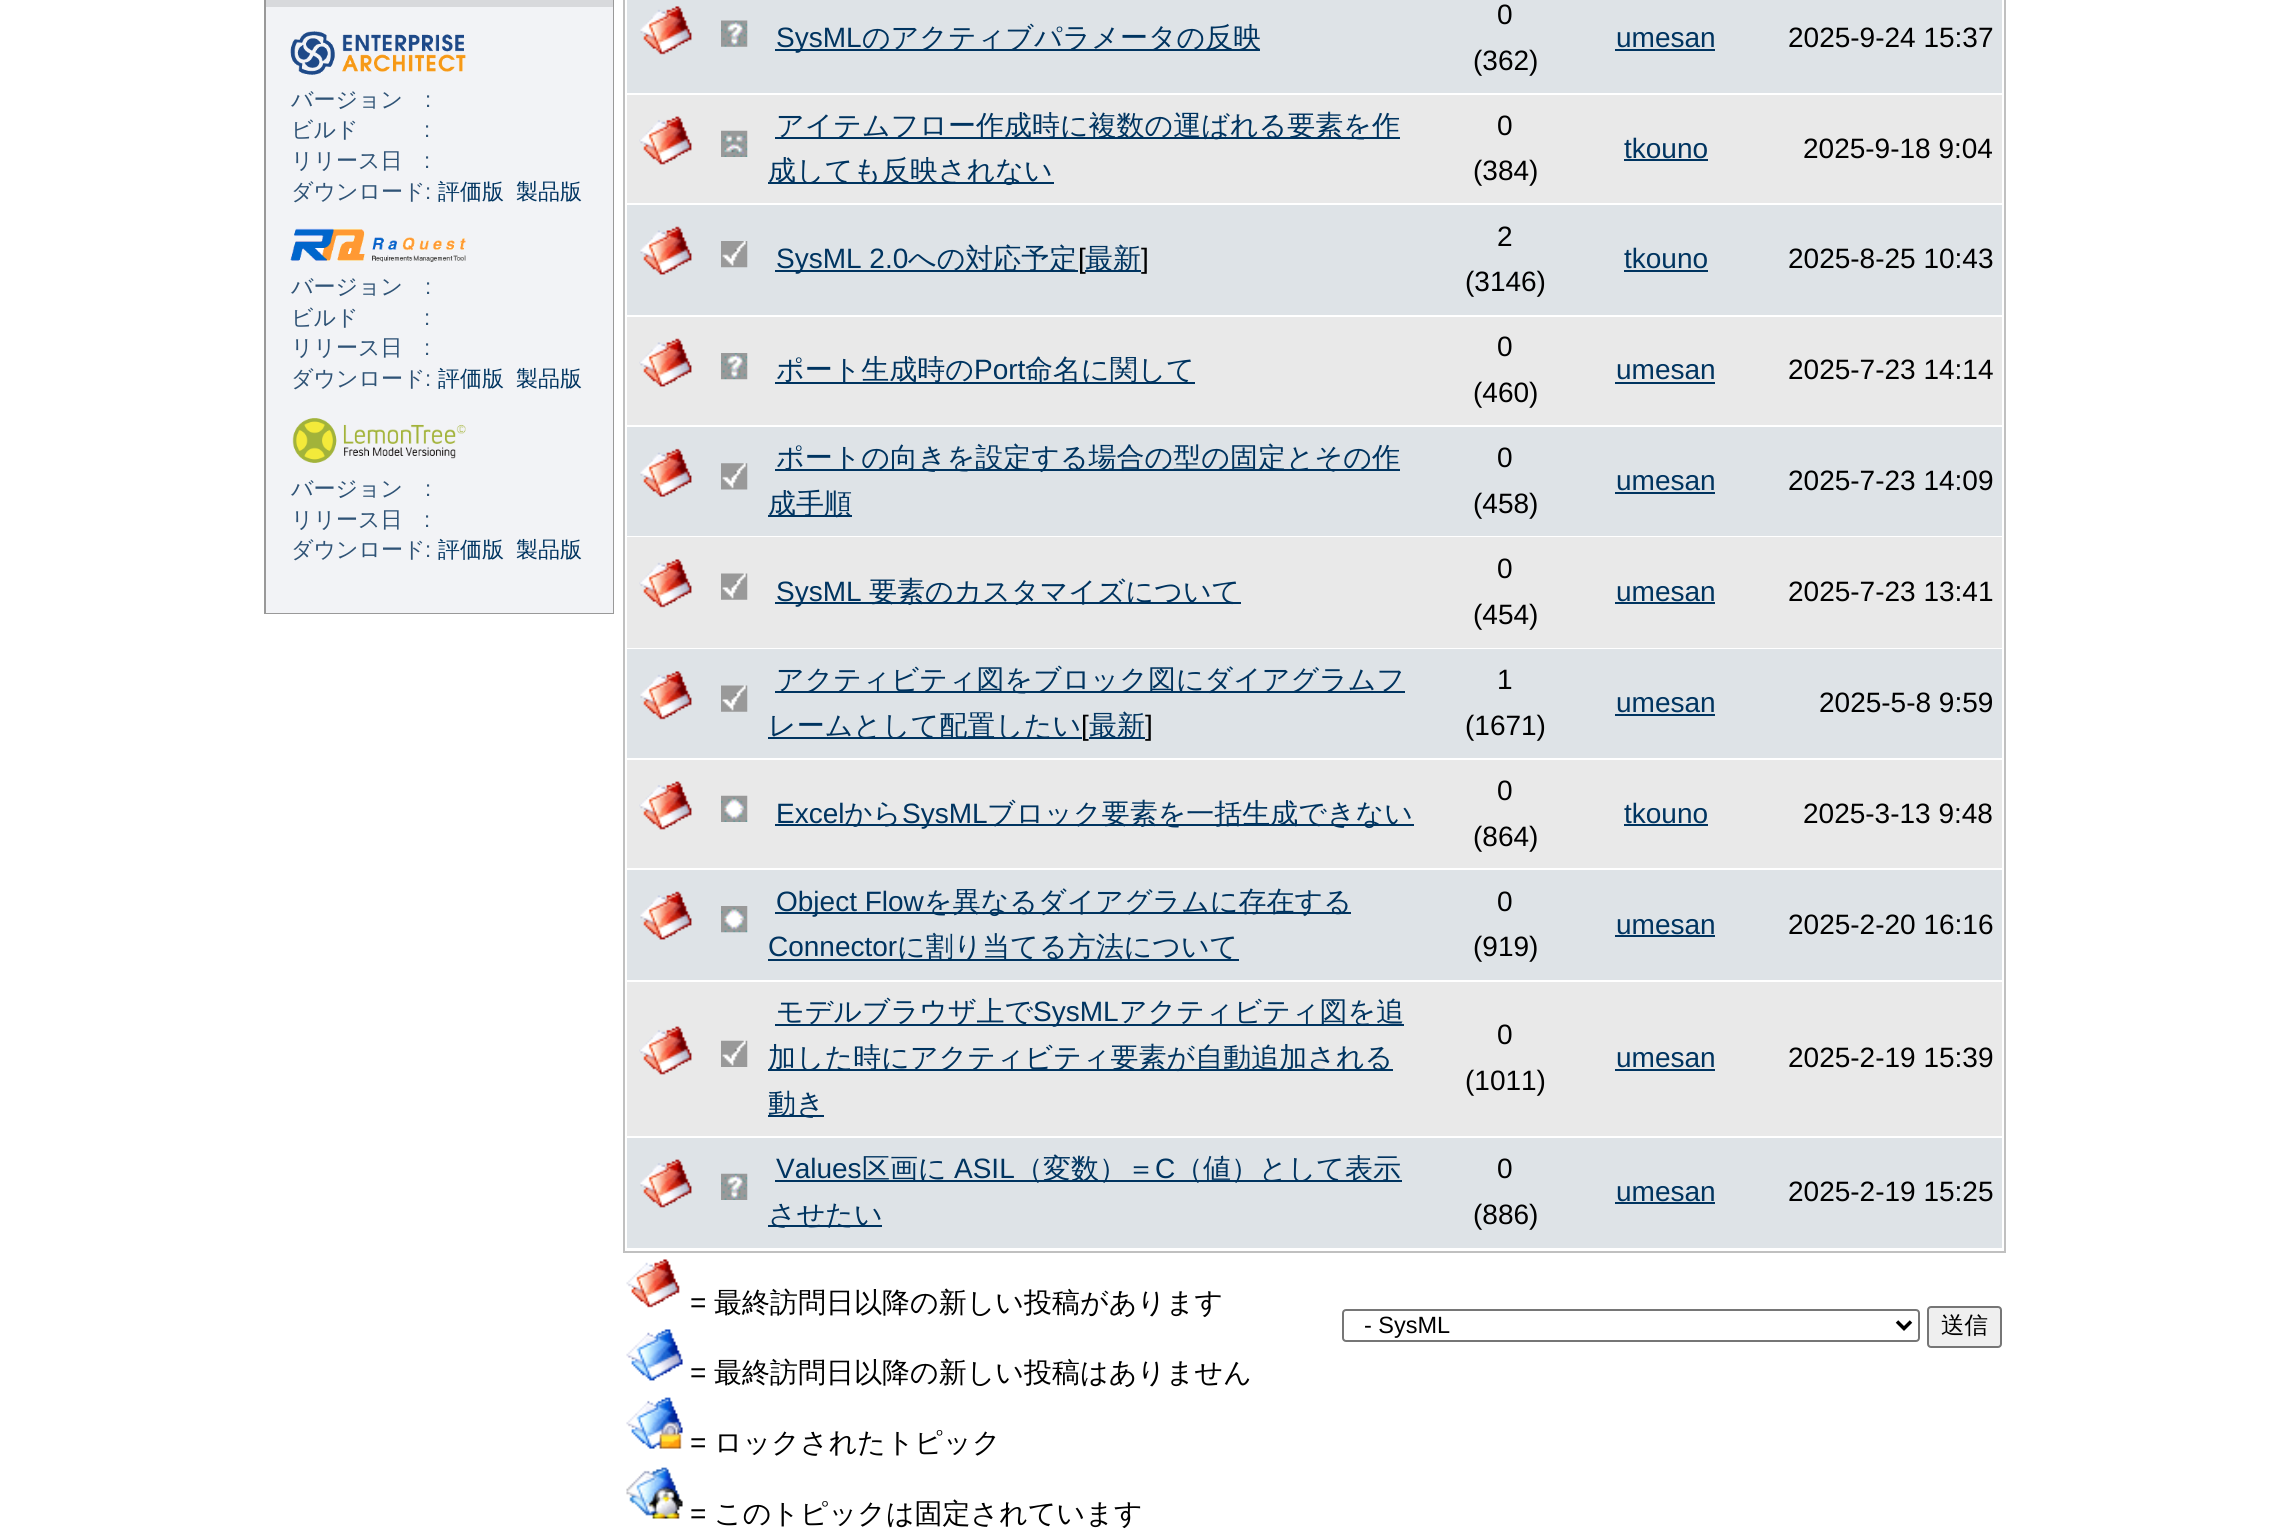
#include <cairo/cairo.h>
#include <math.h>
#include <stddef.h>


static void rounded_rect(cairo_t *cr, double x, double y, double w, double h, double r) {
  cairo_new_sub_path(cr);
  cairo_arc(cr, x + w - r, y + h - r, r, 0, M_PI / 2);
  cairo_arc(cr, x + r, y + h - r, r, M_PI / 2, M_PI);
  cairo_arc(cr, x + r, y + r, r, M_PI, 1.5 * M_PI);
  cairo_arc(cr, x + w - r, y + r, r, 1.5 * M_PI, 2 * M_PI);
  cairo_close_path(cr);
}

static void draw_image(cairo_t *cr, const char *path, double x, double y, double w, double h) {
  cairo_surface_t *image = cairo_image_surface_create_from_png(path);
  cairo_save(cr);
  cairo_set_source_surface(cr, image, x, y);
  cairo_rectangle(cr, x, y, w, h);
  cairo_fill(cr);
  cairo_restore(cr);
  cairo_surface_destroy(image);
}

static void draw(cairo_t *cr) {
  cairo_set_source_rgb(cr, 1, 1, 1);
  cairo_paint(cr);
  cairo_rectangle(cr, 265, -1, 348, 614);
  cairo_set_source_rgb(cr, 153 / 255.0, 153 / 255.0, 153 / 255.0);
  cairo_stroke(cr);
  cairo_set_source_rgb(cr, 216 / 255.0, 217 / 255.0, 220 / 255.0);
  cairo_rectangle(cr, 266, 0, 347, 7);
  cairo_fill(cr);
  cairo_set_source_rgb(cr, 242 / 255.0, 243 / 255.0, 246 / 255.0);
  cairo_rectangle(cr, 266, 7, 347, 606);
  cairo_fill(cr);
  draw_image(cr, "images/1.png", 290, 31, 176, 44);
  draw_image(cr, "images/2.png", 290, 228, 176, 34);
  draw_image(cr, "images/3.png", 292, 418, 174, 45);
  cairo_rectangle(cr, 624, -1, 1381, 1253);
  cairo_set_source_rgb(cr, 192 / 255.0, 192 / 255.0, 192 / 255.0);
  cairo_stroke(cr);
  cairo_set_source_rgb(cr, 222 / 255.0, 227 / 255.0, 231 / 255.0);
  cairo_rectangle(cr, 627, 0, 1375, 93);
  cairo_fill(cr);
  draw_image(cr, "images/4.png", 640, 6, 52, 49);
  draw_image(cr, "images/5.png", 721, 20, 27, 27);
  cairo_set_source_rgb(cr, 0, 52 / 255.0, 96 / 255.0);
  cairo_rectangle(cr, 775, 49, 485, 2);
  cairo_fill(cr);
  cairo_rectangle(cr, 1615, 49, 100, 2);
  cairo_fill(cr);
  cairo_set_source_rgb(cr, 233 / 255.0, 233 / 255.0, 233 / 255.0);
  cairo_rectangle(cr, 627, 95, 1375, 108);
  cairo_fill(cr);
  draw_image(cr, "images/6.png", 639, 116, 53, 49);
  draw_image(cr, "images/7.png", 721, 130, 27, 27);
  cairo_set_source_rgb(cr, 0, 52 / 255.0, 96 / 255.0);
  cairo_rectangle(cr, 775, 137, 625, 2);
  cairo_fill(cr);
  cairo_rectangle(cr, 768, 182, 286, 2);
  cairo_fill(cr);
  cairo_rectangle(cr, 1624, 159, 84, 2);
  cairo_fill(cr);
  cairo_set_source_rgb(cr, 222 / 255.0, 227 / 255.0, 231 / 255.0);
  cairo_rectangle(cr, 627, 205, 1375, 110);
  cairo_fill(cr);
  draw_image(cr, "images/8.png", 640, 226, 52, 49);
  draw_image(cr, "images/9.png", 721, 241, 27, 27);
  cairo_set_source_rgb(cr, 0, 52 / 255.0, 96 / 255.0);
  cairo_rectangle(cr, 775, 270, 303, 2);
  cairo_fill(cr);
  cairo_rectangle(cr, 1624, 270, 84, 2);
  cairo_fill(cr);
  cairo_set_source_rgb(cr, 233 / 255.0, 233 / 255.0, 233 / 255.0);
  cairo_rectangle(cr, 627, 317, 1375, 108);
  cairo_fill(cr);
  draw_image(cr, "images/10.png", 639, 338, 53, 49);
  draw_image(cr, "images/11.png", 721, 353, 27, 27);
  cairo_set_source_rgb(cr, 0, 52 / 255.0, 96 / 255.0);
  cairo_rectangle(cr, 775, 382, 420, 2);
  cairo_fill(cr);
  cairo_rectangle(cr, 1615, 382, 100, 2);
  cairo_fill(cr);
  cairo_set_source_rgb(cr, 222 / 255.0, 227 / 255.0, 231 / 255.0);
  cairo_rectangle(cr, 627, 427, 1375, 109);
  cairo_fill(cr);
  draw_image(cr, "images/12.png", 640, 448, 52, 49);
  draw_image(cr, "images/13.png", 721, 463, 27, 27);
  cairo_set_source_rgb(cr, 0, 52 / 255.0, 96 / 255.0);
  cairo_rectangle(cr, 775, 469, 625, 2);
  cairo_fill(cr);
  cairo_rectangle(cr, 768, 515, 84, 2);
  cairo_fill(cr);
  cairo_rectangle(cr, 1615, 492, 100, 2);
  cairo_fill(cr);
  cairo_set_source_rgb(cr, 233 / 255.0, 233 / 255.0, 233 / 255.0);
  cairo_rectangle(cr, 627, 537, 1375, 111);
  cairo_fill(cr);
  draw_image(cr, "images/14.png", 639, 559, 53, 49);
  draw_image(cr, "images/15.png", 721, 573, 27, 27);
  cairo_set_source_rgb(cr, 0, 52 / 255.0, 96 / 255.0);
  cairo_rectangle(cr, 775, 602, 466, 2);
  cairo_fill(cr);
  cairo_rectangle(cr, 1615, 602, 100, 2);
  cairo_fill(cr);
  cairo_set_source_rgb(cr, 222 / 255.0, 227 / 255.0, 231 / 255.0);
  cairo_rectangle(cr, 627, 649, 1375, 109);
  cairo_fill(cr);
  draw_image(cr, "images/4.png", 640, 671, 52, 49);
  draw_image(cr, "images/16.png", 721, 685, 27, 27);
  cairo_set_source_rgb(cr, 0, 52 / 255.0, 96 / 255.0);
  cairo_rectangle(cr, 775, 691, 630, 2);
  cairo_fill(cr);
  cairo_rectangle(cr, 768, 737, 314, 2);
  cairo_fill(cr);
  cairo_rectangle(cr, 1615, 714, 100, 2);
  cairo_fill(cr);
  cairo_set_source_rgb(cr, 233 / 255.0, 233 / 255.0, 233 / 255.0);
  cairo_rectangle(cr, 627, 760, 1375, 108);
  cairo_fill(cr);
  draw_image(cr, "images/6.png", 639, 781, 53, 49);
  draw_image(cr, "images/17.png", 721, 795, 27, 27);
  cairo_set_source_rgb(cr, 0, 52 / 255.0, 96 / 255.0);
  cairo_rectangle(cr, 775, 824, 639, 2);
  cairo_fill(cr);
  cairo_rectangle(cr, 1624, 824, 84, 2);
  cairo_fill(cr);
  cairo_set_source_rgb(cr, 222 / 255.0, 227 / 255.0, 231 / 255.0);
  cairo_rectangle(cr, 627, 870, 1375, 110);
  cairo_fill(cr);
  draw_image(cr, "images/8.png", 640, 891, 52, 49);
  draw_image(cr, "images/18.png", 721, 906, 27, 27);
  cairo_set_source_rgb(cr, 0, 52 / 255.0, 96 / 255.0);
  cairo_rectangle(cr, 775, 912, 576, 2);
  cairo_fill(cr);
  cairo_rectangle(cr, 768, 959, 471, 2);
  cairo_fill(cr);
  cairo_rectangle(cr, 1615, 935, 100, 2);
  cairo_fill(cr);
  cairo_set_source_rgb(cr, 233 / 255.0, 233 / 255.0, 233 / 255.0);
  cairo_rectangle(cr, 627, 982, 1375, 154);
  cairo_fill(cr);
  draw_image(cr, "images/6.png", 639, 1026, 53, 49);
  draw_image(cr, "images/19.png", 721, 1040, 27, 27);
  cairo_set_source_rgb(cr, 0, 52 / 255.0, 96 / 255.0);
  cairo_rectangle(cr, 775, 1024, 629, 2);
  cairo_fill(cr);
  cairo_rectangle(cr, 768, 1069, 625, 2);
  cairo_fill(cr);
  cairo_rectangle(cr, 768, 1115, 56, 2);
  cairo_fill(cr);
  cairo_rectangle(cr, 1615, 1069, 100, 2);
  cairo_fill(cr);
  cairo_set_source_rgb(cr, 222 / 255.0, 227 / 255.0, 231 / 255.0);
  cairo_rectangle(cr, 627, 1138, 1375, 110);
  cairo_fill(cr);
  draw_image(cr, "images/20.png", 640, 1159, 52, 49);
  draw_image(cr, "images/21.png", 721, 1173, 27, 27);
  cairo_set_source_rgb(cr, 0, 52 / 255.0, 96 / 255.0);
  cairo_rectangle(cr, 775, 1180, 627, 2);
  cairo_fill(cr);
  cairo_rectangle(cr, 768, 1225, 114, 2);
  cairo_fill(cr);
  cairo_rectangle(cr, 1615, 1202, 100, 2);
  cairo_fill(cr);
  draw_image(cr, "images/22.png", 626, 1259, 54, 49);
  draw_image(cr, "images/23.png", 626, 1329, 57, 52);
  draw_image(cr, "images/24.png", 626, 1397, 57, 52);
  draw_image(cr, "images/25.png", 626, 1467, 57, 52);
  rounded_rect(cr, 1343, 1310, 576, 31, 3);
  cairo_set_source_rgb(cr, 118 / 255.0, 118 / 255.0, 118 / 255.0);
  cairo_stroke(cr);
  cairo_new_path(cr);
  cairo_move_to(cr, 1897, 1321.5);
  cairo_line_to(cr, 1904, 1328.5);
  cairo_line_to(cr, 1911, 1321.5);
  cairo_set_source_rgb(cr, 0, 0, 0);
  cairo_set_line_width(cr, 3.5);
  cairo_stroke(cr);
  cairo_set_source_rgb(cr, 239 / 255.0, 239 / 255.0, 239 / 255.0);
  rounded_rect(cr, 1928, 1307, 73, 40, 3);
  cairo_fill_preserve(cr);
  cairo_set_source_rgb(cr, 118 / 255.0, 118 / 255.0, 118 / 255.0);
  cairo_set_line_width(cr, 2);
  cairo_stroke(cr);
  cairo_select_font_face(cr, "WenQuanYi Zen Hei Medium", CAIRO_FONT_SLANT_NORMAL, CAIRO_FONT_WEIGHT_NORMAL);
  cairo_set_font_size(cr, 22);
  cairo_set_source_rgb(cr, 47 / 255.0, 83 / 255.0, 118 / 255.0);
  cairo_move_to(cr, 291, 107);
  cairo_show_text(cr, "バージョン");
  cairo_select_font_face(cr, "Liberation Sans", CAIRO_FONT_SLANT_NORMAL, CAIRO_FONT_WEIGHT_NORMAL);
  cairo_move_to(cr, 425, 107);
  cairo_show_text(cr, ":");
  cairo_select_font_face(cr, "WenQuanYi Zen Hei Medium", CAIRO_FONT_SLANT_NORMAL, CAIRO_FONT_WEIGHT_NORMAL);
  cairo_move_to(cr, 291, 137);
  cairo_show_text(cr, "ビルド");
  cairo_select_font_face(cr, "Liberation Sans", CAIRO_FONT_SLANT_NORMAL, CAIRO_FONT_WEIGHT_NORMAL);
  cairo_move_to(cr, 424, 137);
  cairo_show_text(cr, ":");
  cairo_select_font_face(cr, "WenQuanYi Zen Hei Medium", CAIRO_FONT_SLANT_NORMAL, CAIRO_FONT_WEIGHT_NORMAL);
  cairo_move_to(cr, 291, 168);
  cairo_show_text(cr, "リリース日");
  cairo_select_font_face(cr, "Liberation Sans", CAIRO_FONT_SLANT_NORMAL, CAIRO_FONT_WEIGHT_NORMAL);
  cairo_move_to(cr, 424, 168);
  cairo_show_text(cr, ":");
  cairo_select_font_face(cr, "WenQuanYi Zen Hei Medium", CAIRO_FONT_SLANT_NORMAL, CAIRO_FONT_WEIGHT_NORMAL);
  cairo_move_to(cr, 291, 199);
  cairo_show_text(cr, "ダウンロード");
  cairo_select_font_face(cr, "Liberation Sans", CAIRO_FONT_SLANT_NORMAL, CAIRO_FONT_WEIGHT_NORMAL);
  cairo_move_to(cr, 425, 199);
  cairo_show_text(cr, ":");
  cairo_select_font_face(cr, "WenQuanYi Zen Hei Medium", CAIRO_FONT_SLANT_NORMAL, CAIRO_FONT_WEIGHT_NORMAL);
  cairo_set_source_rgb(cr, 0, 52 / 255.0, 96 / 255.0);
  cairo_move_to(cr, 438, 199);
  cairo_show_text(cr, "評価版");
  cairo_move_to(cr, 516, 199);
  cairo_show_text(cr, "製品版");
  cairo_set_source_rgb(cr, 47 / 255.0, 83 / 255.0, 118 / 255.0);
  cairo_move_to(cr, 291, 294);
  cairo_show_text(cr, "バージョン");
  cairo_select_font_face(cr, "Liberation Sans", CAIRO_FONT_SLANT_NORMAL, CAIRO_FONT_WEIGHT_NORMAL);
  cairo_move_to(cr, 425, 294);
  cairo_show_text(cr, ":");
  cairo_select_font_face(cr, "WenQuanYi Zen Hei Medium", CAIRO_FONT_SLANT_NORMAL, CAIRO_FONT_WEIGHT_NORMAL);
  cairo_move_to(cr, 291, 325);
  cairo_show_text(cr, "ビルド");
  cairo_select_font_face(cr, "Liberation Sans", CAIRO_FONT_SLANT_NORMAL, CAIRO_FONT_WEIGHT_NORMAL);
  cairo_move_to(cr, 424, 325);
  cairo_show_text(cr, ":");
  cairo_select_font_face(cr, "WenQuanYi Zen Hei Medium", CAIRO_FONT_SLANT_NORMAL, CAIRO_FONT_WEIGHT_NORMAL);
  cairo_move_to(cr, 291, 355);
  cairo_show_text(cr, "リリース日");
  cairo_select_font_face(cr, "Liberation Sans", CAIRO_FONT_SLANT_NORMAL, CAIRO_FONT_WEIGHT_NORMAL);
  cairo_move_to(cr, 424, 355);
  cairo_show_text(cr, ":");
  cairo_select_font_face(cr, "WenQuanYi Zen Hei Medium", CAIRO_FONT_SLANT_NORMAL, CAIRO_FONT_WEIGHT_NORMAL);
  cairo_move_to(cr, 291, 386);
  cairo_show_text(cr, "ダウンロード");
  cairo_select_font_face(cr, "Liberation Sans", CAIRO_FONT_SLANT_NORMAL, CAIRO_FONT_WEIGHT_NORMAL);
  cairo_move_to(cr, 425, 386);
  cairo_show_text(cr, ":");
  cairo_select_font_face(cr, "WenQuanYi Zen Hei Medium", CAIRO_FONT_SLANT_NORMAL, CAIRO_FONT_WEIGHT_NORMAL);
  cairo_set_source_rgb(cr, 0, 52 / 255.0, 96 / 255.0);
  cairo_move_to(cr, 438, 386);
  cairo_show_text(cr, "評価版");
  cairo_move_to(cr, 516, 386);
  cairo_show_text(cr, "製品版");
  cairo_set_source_rgb(cr, 47 / 255.0, 83 / 255.0, 118 / 255.0);
  cairo_move_to(cr, 291, 496);
  cairo_show_text(cr, "バージョン");
  cairo_select_font_face(cr, "Liberation Sans", CAIRO_FONT_SLANT_NORMAL, CAIRO_FONT_WEIGHT_NORMAL);
  cairo_move_to(cr, 425, 496);
  cairo_show_text(cr, ":");
  cairo_select_font_face(cr, "WenQuanYi Zen Hei Medium", CAIRO_FONT_SLANT_NORMAL, CAIRO_FONT_WEIGHT_NORMAL);
  cairo_move_to(cr, 291, 527);
  cairo_show_text(cr, "リリース日");
  cairo_select_font_face(cr, "Liberation Sans", CAIRO_FONT_SLANT_NORMAL, CAIRO_FONT_WEIGHT_NORMAL);
  cairo_move_to(cr, 424, 527);
  cairo_show_text(cr, ":");
  cairo_select_font_face(cr, "WenQuanYi Zen Hei Medium", CAIRO_FONT_SLANT_NORMAL, CAIRO_FONT_WEIGHT_NORMAL);
  cairo_move_to(cr, 291, 557);
  cairo_show_text(cr, "ダウンロード");
  cairo_select_font_face(cr, "Liberation Sans", CAIRO_FONT_SLANT_NORMAL, CAIRO_FONT_WEIGHT_NORMAL);
  cairo_move_to(cr, 425, 557);
  cairo_show_text(cr, ":");
  cairo_select_font_face(cr, "WenQuanYi Zen Hei Medium", CAIRO_FONT_SLANT_NORMAL, CAIRO_FONT_WEIGHT_NORMAL);
  cairo_set_source_rgb(cr, 0, 52 / 255.0, 96 / 255.0);
  cairo_move_to(cr, 438, 557);
  cairo_show_text(cr, "評価版");
  cairo_move_to(cr, 516, 557);
  cairo_show_text(cr, "製品版");
  cairo_select_font_face(cr, "Liberation Sans", CAIRO_FONT_SLANT_NORMAL, CAIRO_FONT_WEIGHT_NORMAL);
  cairo_set_font_size(cr, 28);
  cairo_move_to(cr, 776, 47);
  cairo_show_text(cr, "SysML");
  cairo_select_font_face(cr, "WenQuanYi Zen Hei Medium", CAIRO_FONT_SLANT_NORMAL, CAIRO_FONT_WEIGHT_NORMAL);
  cairo_move_to(cr, 862, 47);
  cairo_show_text(cr, "のアクティブパラメータの反映");
  cairo_select_font_face(cr, "Liberation Sans", CAIRO_FONT_SLANT_NORMAL, CAIRO_FONT_WEIGHT_NORMAL);
  cairo_set_source_rgb(cr, 0, 0, 0);
  cairo_move_to(cr, 1497, 24);
  cairo_show_text(cr, "0");
  cairo_move_to(cr, 1473, 70);
  cairo_show_text(cr, "(362)");
  cairo_set_source_rgb(cr, 0, 52 / 255.0, 96 / 255.0);
  cairo_move_to(cr, 1616, 47);
  cairo_show_text(cr, "umesan");
  cairo_set_source_rgb(cr, 0, 0, 0);
  cairo_move_to(cr, 1788, 47);
  cairo_show_text(cr, "2025-9-24 15:37");
  cairo_select_font_face(cr, "WenQuanYi Zen Hei Medium", CAIRO_FONT_SLANT_NORMAL, CAIRO_FONT_WEIGHT_NORMAL);
  cairo_set_source_rgb(cr, 0, 52 / 255.0, 96 / 255.0);
  cairo_move_to(cr, 776, 135);
  cairo_show_text(cr, "アイテムフロー作成時に複数の運ばれる要素を作");
  cairo_move_to(cr, 768, 180);
  cairo_show_text(cr, "成しても反映されない");
  cairo_select_font_face(cr, "Liberation Sans", CAIRO_FONT_SLANT_NORMAL, CAIRO_FONT_WEIGHT_NORMAL);
  cairo_set_source_rgb(cr, 0, 0, 0);
  cairo_move_to(cr, 1497, 135);
  cairo_show_text(cr, "0");
  cairo_move_to(cr, 1473, 180);
  cairo_show_text(cr, "(384)");
  cairo_set_source_rgb(cr, 0, 52 / 255.0, 96 / 255.0);
  cairo_move_to(cr, 1624, 158);
  cairo_show_text(cr, "tkouno");
  cairo_set_source_rgb(cr, 0, 0, 0);
  cairo_move_to(cr, 1803, 158);
  cairo_show_text(cr, "2025-9-18 9:04");
  cairo_set_source_rgb(cr, 0, 52 / 255.0, 96 / 255.0);
  cairo_move_to(cr, 776, 268);
  cairo_show_text(cr, "SysML 2.0");
  cairo_select_font_face(cr, "WenQuanYi Zen Hei Medium", CAIRO_FONT_SLANT_NORMAL, CAIRO_FONT_WEIGHT_NORMAL);
  cairo_move_to(cr, 908, 268);
  cairo_show_text(cr, "への対応予定");
  cairo_select_font_face(cr, "Liberation Sans", CAIRO_FONT_SLANT_NORMAL, CAIRO_FONT_WEIGHT_NORMAL);
  cairo_set_source_rgb(cr, 0, 0, 0);
  cairo_move_to(cr, 1078, 268);
  cairo_show_text(cr, "[");
  cairo_set_source_rgb(cr, 0, 52 / 255.0, 96 / 255.0);
  cairo_rectangle(cr, 1085, 270, 56, 2);
  cairo_fill(cr);
  cairo_select_font_face(cr, "WenQuanYi Zen Hei Medium", CAIRO_FONT_SLANT_NORMAL, CAIRO_FONT_WEIGHT_NORMAL);
  cairo_move_to(cr, 1085, 268);
  cairo_show_text(cr, "最新");
  cairo_select_font_face(cr, "Liberation Sans", CAIRO_FONT_SLANT_NORMAL, CAIRO_FONT_WEIGHT_NORMAL);
  cairo_set_source_rgb(cr, 0, 0, 0);
  cairo_move_to(cr, 1141, 268);
  cairo_show_text(cr, "]");
  cairo_move_to(cr, 1497, 246);
  cairo_show_text(cr, "2");
  cairo_move_to(cr, 1465, 291);
  cairo_show_text(cr, "(3146)");
  cairo_set_source_rgb(cr, 0, 52 / 255.0, 96 / 255.0);
  cairo_move_to(cr, 1624, 268);
  cairo_show_text(cr, "tkouno");
  cairo_set_source_rgb(cr, 0, 0, 0);
  cairo_move_to(cr, 1788, 268);
  cairo_show_text(cr, "2025-8-25 10:43");
  cairo_select_font_face(cr, "WenQuanYi Zen Hei Medium", CAIRO_FONT_SLANT_NORMAL, CAIRO_FONT_WEIGHT_NORMAL);
  cairo_set_source_rgb(cr, 0, 52 / 255.0, 96 / 255.0);
  cairo_move_to(cr, 776, 379);
  cairo_show_text(cr, "ポート生成時の");
  cairo_select_font_face(cr, "Liberation Sans", CAIRO_FONT_SLANT_NORMAL, CAIRO_FONT_WEIGHT_NORMAL);
  cairo_move_to(cr, 974, 379);
  cairo_show_text(cr, "Port");
  cairo_select_font_face(cr, "WenQuanYi Zen Hei Medium", CAIRO_FONT_SLANT_NORMAL, CAIRO_FONT_WEIGHT_NORMAL);
  cairo_move_to(cr, 1025, 379);
  cairo_show_text(cr, "命名に関して");
  cairo_select_font_face(cr, "Liberation Sans", CAIRO_FONT_SLANT_NORMAL, CAIRO_FONT_WEIGHT_NORMAL);
  cairo_set_source_rgb(cr, 0, 0, 0);
  cairo_move_to(cr, 1497, 356);
  cairo_show_text(cr, "0");
  cairo_move_to(cr, 1473, 402);
  cairo_show_text(cr, "(460)");
  cairo_set_source_rgb(cr, 0, 52 / 255.0, 96 / 255.0);
  cairo_move_to(cr, 1616, 379);
  cairo_show_text(cr, "umesan");
  cairo_set_source_rgb(cr, 0, 0, 0);
  cairo_move_to(cr, 1788, 379);
  cairo_show_text(cr, "2025-7-23 14:14");
  cairo_select_font_face(cr, "WenQuanYi Zen Hei Medium", CAIRO_FONT_SLANT_NORMAL, CAIRO_FONT_WEIGHT_NORMAL);
  cairo_set_source_rgb(cr, 0, 52 / 255.0, 96 / 255.0);
  cairo_move_to(cr, 776, 467);
  cairo_show_text(cr, "ポートの向きを設定する場合の型の固定とその作");
  cairo_move_to(cr, 768, 513);
  cairo_show_text(cr, "成手順");
  cairo_select_font_face(cr, "Liberation Sans", CAIRO_FONT_SLANT_NORMAL, CAIRO_FONT_WEIGHT_NORMAL);
  cairo_set_source_rgb(cr, 0, 0, 0);
  cairo_move_to(cr, 1497, 467);
  cairo_show_text(cr, "0");
  cairo_move_to(cr, 1473, 513);
  cairo_show_text(cr, "(458)");
  cairo_set_source_rgb(cr, 0, 52 / 255.0, 96 / 255.0);
  cairo_move_to(cr, 1616, 490);
  cairo_show_text(cr, "umesan");
  cairo_set_source_rgb(cr, 0, 0, 0);
  cairo_move_to(cr, 1788, 490);
  cairo_show_text(cr, "2025-7-23 14:09");
  cairo_set_source_rgb(cr, 0, 52 / 255.0, 96 / 255.0);
  cairo_move_to(cr, 776, 601);
  cairo_show_text(cr, "SysML");
  cairo_select_font_face(cr, "WenQuanYi Zen Hei Medium", CAIRO_FONT_SLANT_NORMAL, CAIRO_FONT_WEIGHT_NORMAL);
  cairo_move_to(cr, 869, 601);
  cairo_show_text(cr, "要素のカスタマイズについて");
  cairo_select_font_face(cr, "Liberation Sans", CAIRO_FONT_SLANT_NORMAL, CAIRO_FONT_WEIGHT_NORMAL);
  cairo_set_source_rgb(cr, 0, 0, 0);
  cairo_move_to(cr, 1497, 578);
  cairo_show_text(cr, "0");
  cairo_move_to(cr, 1473, 624);
  cairo_show_text(cr, "(454)");
  cairo_set_source_rgb(cr, 0, 52 / 255.0, 96 / 255.0);
  cairo_move_to(cr, 1616, 601);
  cairo_show_text(cr, "umesan");
  cairo_set_source_rgb(cr, 0, 0, 0);
  cairo_move_to(cr, 1788, 601);
  cairo_show_text(cr, "2025-7-23 13:41");
  cairo_select_font_face(cr, "WenQuanYi Zen Hei Medium", CAIRO_FONT_SLANT_NORMAL, CAIRO_FONT_WEIGHT_NORMAL);
  cairo_set_source_rgb(cr, 0, 52 / 255.0, 96 / 255.0);
  cairo_move_to(cr, 776, 689);
  cairo_show_text(cr, "アクティビティ図をブロック図にダイアグラムフ");
  cairo_move_to(cr, 768, 735);
  cairo_show_text(cr, "レームとして配置したい");
  cairo_select_font_face(cr, "Liberation Sans", CAIRO_FONT_SLANT_NORMAL, CAIRO_FONT_WEIGHT_NORMAL);
  cairo_set_source_rgb(cr, 0, 0, 0);
  cairo_move_to(cr, 1081, 735);
  cairo_show_text(cr, "[");
  cairo_set_source_rgb(cr, 0, 52 / 255.0, 96 / 255.0);
  cairo_rectangle(cr, 1089, 737, 56, 2);
  cairo_fill(cr);
  cairo_select_font_face(cr, "WenQuanYi Zen Hei Medium", CAIRO_FONT_SLANT_NORMAL, CAIRO_FONT_WEIGHT_NORMAL);
  cairo_move_to(cr, 1089, 735);
  cairo_show_text(cr, "最新");
  cairo_select_font_face(cr, "Liberation Sans", CAIRO_FONT_SLANT_NORMAL, CAIRO_FONT_WEIGHT_NORMAL);
  cairo_set_source_rgb(cr, 0, 0, 0);
  cairo_move_to(cr, 1145, 735);
  cairo_show_text(cr, "]");
  cairo_move_to(cr, 1497, 689);
  cairo_show_text(cr, "1");
  cairo_move_to(cr, 1465, 735);
  cairo_show_text(cr, "(1671)");
  cairo_set_source_rgb(cr, 0, 52 / 255.0, 96 / 255.0);
  cairo_move_to(cr, 1616, 712);
  cairo_show_text(cr, "umesan");
  cairo_set_source_rgb(cr, 0, 0, 0);
  cairo_move_to(cr, 1819, 712);
  cairo_show_text(cr, "2025-5-8 9:59");
  cairo_set_source_rgb(cr, 0, 52 / 255.0, 96 / 255.0);
  cairo_move_to(cr, 776, 823);
  cairo_show_text(cr, "Excel");
  cairo_select_font_face(cr, "WenQuanYi Zen Hei Medium", CAIRO_FONT_SLANT_NORMAL, CAIRO_FONT_WEIGHT_NORMAL);
  cairo_move_to(cr, 844, 823);
  cairo_show_text(cr, "から");
  cairo_select_font_face(cr, "Liberation Sans", CAIRO_FONT_SLANT_NORMAL, CAIRO_FONT_WEIGHT_NORMAL);
  cairo_move_to(cr, 902, 823);
  cairo_show_text(cr, "SysML");
  cairo_select_font_face(cr, "WenQuanYi Zen Hei Medium", CAIRO_FONT_SLANT_NORMAL, CAIRO_FONT_WEIGHT_NORMAL);
  cairo_move_to(cr, 987, 823);
  cairo_show_text(cr, "ブロック要素を一括生成できない");
  cairo_select_font_face(cr, "Liberation Sans", CAIRO_FONT_SLANT_NORMAL, CAIRO_FONT_WEIGHT_NORMAL);
  cairo_set_source_rgb(cr, 0, 0, 0);
  cairo_move_to(cr, 1497, 800);
  cairo_show_text(cr, "0");
  cairo_move_to(cr, 1473, 846);
  cairo_show_text(cr, "(864)");
  cairo_set_source_rgb(cr, 0, 52 / 255.0, 96 / 255.0);
  cairo_move_to(cr, 1624, 823);
  cairo_show_text(cr, "tkouno");
  cairo_set_source_rgb(cr, 0, 0, 0);
  cairo_move_to(cr, 1803, 823);
  cairo_show_text(cr, "2025-3-13 9:48");
  cairo_set_source_rgb(cr, 0, 52 / 255.0, 96 / 255.0);
  cairo_move_to(cr, 776, 911);
  cairo_show_text(cr, "Object Flow");
  cairo_select_font_face(cr, "WenQuanYi Zen Hei Medium", CAIRO_FONT_SLANT_NORMAL, CAIRO_FONT_WEIGHT_NORMAL);
  cairo_move_to(cr, 924, 911);
  cairo_show_text(cr, "を異なるダイアグラムに存在する");
  cairo_select_font_face(cr, "Liberation Sans", CAIRO_FONT_SLANT_NORMAL, CAIRO_FONT_WEIGHT_NORMAL);
  cairo_move_to(cr, 768, 956);
  cairo_show_text(cr, "Connector");
  cairo_select_font_face(cr, "WenQuanYi Zen Hei Medium", CAIRO_FONT_SLANT_NORMAL, CAIRO_FONT_WEIGHT_NORMAL);
  cairo_move_to(cr, 897, 956);
  cairo_show_text(cr, "に割り当てる方法について");
  cairo_select_font_face(cr, "Liberation Sans", CAIRO_FONT_SLANT_NORMAL, CAIRO_FONT_WEIGHT_NORMAL);
  cairo_set_source_rgb(cr, 0, 0, 0);
  cairo_move_to(cr, 1497, 911);
  cairo_show_text(cr, "0");
  cairo_move_to(cr, 1473, 956);
  cairo_show_text(cr, "(919)");
  cairo_set_source_rgb(cr, 0, 52 / 255.0, 96 / 255.0);
  cairo_move_to(cr, 1616, 934);
  cairo_show_text(cr, "umesan");
  cairo_set_source_rgb(cr, 0, 0, 0);
  cairo_move_to(cr, 1788, 934);
  cairo_show_text(cr, "2025-2-20 16:16");
  cairo_select_font_face(cr, "WenQuanYi Zen Hei Medium", CAIRO_FONT_SLANT_NORMAL, CAIRO_FONT_WEIGHT_NORMAL);
  cairo_set_source_rgb(cr, 0, 52 / 255.0, 96 / 255.0);
  cairo_move_to(cr, 776, 1021);
  cairo_show_text(cr, "モデルブラウザ上で");
  cairo_select_font_face(cr, "Liberation Sans", CAIRO_FONT_SLANT_NORMAL, CAIRO_FONT_WEIGHT_NORMAL);
  cairo_move_to(cr, 1033, 1021);
  cairo_show_text(cr, "SysML");
  cairo_select_font_face(cr, "WenQuanYi Zen Hei Medium", CAIRO_FONT_SLANT_NORMAL, CAIRO_FONT_WEIGHT_NORMAL);
  cairo_move_to(cr, 1119, 1021);
  cairo_show_text(cr, "アクティビティ図を追");
  cairo_move_to(cr, 768, 1067);
  cairo_show_text(cr, "加した時にアクティビティ要素が自動追加される");
  cairo_move_to(cr, 768, 1113);
  cairo_show_text(cr, "動き");
  cairo_select_font_face(cr, "Liberation Sans", CAIRO_FONT_SLANT_NORMAL, CAIRO_FONT_WEIGHT_NORMAL);
  cairo_set_source_rgb(cr, 0, 0, 0);
  cairo_move_to(cr, 1497, 1044);
  cairo_show_text(cr, "0");
  cairo_move_to(cr, 1465, 1090);
  cairo_show_text(cr, "(1011)");
  cairo_set_source_rgb(cr, 0, 52 / 255.0, 96 / 255.0);
  cairo_move_to(cr, 1616, 1067);
  cairo_show_text(cr, "umesan");
  cairo_set_source_rgb(cr, 0, 0, 0);
  cairo_move_to(cr, 1788, 1067);
  cairo_show_text(cr, "2025-2-19 15:39");
  cairo_set_source_rgb(cr, 0, 52 / 255.0, 96 / 255.0);
  cairo_move_to(cr, 776, 1178);
  cairo_show_text(cr, "Values");
  cairo_select_font_face(cr, "WenQuanYi Zen Hei Medium", CAIRO_FONT_SLANT_NORMAL, CAIRO_FONT_WEIGHT_NORMAL);
  cairo_move_to(cr, 862, 1178);
  cairo_show_text(cr, "区画に");
  cairo_select_font_face(cr, "Liberation Sans", CAIRO_FONT_SLANT_NORMAL, CAIRO_FONT_WEIGHT_NORMAL);
  cairo_move_to(cr, 954, 1178);
  cairo_show_text(cr, "ASIL");
  cairo_select_font_face(cr, "WenQuanYi Zen Hei Medium", CAIRO_FONT_SLANT_NORMAL, CAIRO_FONT_WEIGHT_NORMAL);
  cairo_move_to(cr, 1015, 1178);
  cairo_show_text(cr, "（変数）＝");
  cairo_select_font_face(cr, "Liberation Sans", CAIRO_FONT_SLANT_NORMAL, CAIRO_FONT_WEIGHT_NORMAL);
  cairo_move_to(cr, 1155, 1178);
  cairo_show_text(cr, "C");
  cairo_select_font_face(cr, "WenQuanYi Zen Hei Medium", CAIRO_FONT_SLANT_NORMAL, CAIRO_FONT_WEIGHT_NORMAL);
  cairo_move_to(cr, 1175, 1178);
  cairo_show_text(cr, "（値）として表示");
  cairo_move_to(cr, 768, 1224);
  cairo_show_text(cr, "させたい");
  cairo_select_font_face(cr, "Liberation Sans", CAIRO_FONT_SLANT_NORMAL, CAIRO_FONT_WEIGHT_NORMAL);
  cairo_set_source_rgb(cr, 0, 0, 0);
  cairo_move_to(cr, 1497, 1178);
  cairo_show_text(cr, "0");
  cairo_move_to(cr, 1473, 1224);
  cairo_show_text(cr, "(886)");
  cairo_set_source_rgb(cr, 0, 52 / 255.0, 96 / 255.0);
  cairo_move_to(cr, 1616, 1201);
  cairo_show_text(cr, "umesan");
  cairo_set_source_rgb(cr, 0, 0, 0);
  cairo_move_to(cr, 1788, 1201);
  cairo_show_text(cr, "2025-2-19 15:25");
  cairo_move_to(cr, 690, 1312);
  cairo_show_text(cr, "=");
  cairo_select_font_face(cr, "WenQuanYi Zen Hei Medium", CAIRO_FONT_SLANT_NORMAL, CAIRO_FONT_WEIGHT_NORMAL);
  cairo_move_to(cr, 714, 1312);
  cairo_show_text(cr, "最終訪問日以降の新しい投稿があります");
  cairo_select_font_face(cr, "Liberation Sans", CAIRO_FONT_SLANT_NORMAL, CAIRO_FONT_WEIGHT_NORMAL);
  cairo_move_to(cr, 690, 1382);
  cairo_show_text(cr, "=");
  cairo_select_font_face(cr, "WenQuanYi Zen Hei Medium", CAIRO_FONT_SLANT_NORMAL, CAIRO_FONT_WEIGHT_NORMAL);
  cairo_move_to(cr, 714, 1382);
  cairo_show_text(cr, "最終訪問日以降の新しい投稿はありません");
  cairo_select_font_face(cr, "Liberation Sans", CAIRO_FONT_SLANT_NORMAL, CAIRO_FONT_WEIGHT_NORMAL);
  cairo_move_to(cr, 690, 1452);
  cairo_show_text(cr, "=");
  cairo_select_font_face(cr, "WenQuanYi Zen Hei Medium", CAIRO_FONT_SLANT_NORMAL, CAIRO_FONT_WEIGHT_NORMAL);
  cairo_move_to(cr, 714, 1452);
  cairo_show_text(cr, "ロックされたトピック");
  cairo_select_font_face(cr, "Liberation Sans", CAIRO_FONT_SLANT_NORMAL, CAIRO_FONT_WEIGHT_NORMAL);
  cairo_move_to(cr, 690, 1523);
  cairo_show_text(cr, "=");
  cairo_select_font_face(cr, "WenQuanYi Zen Hei Medium", CAIRO_FONT_SLANT_NORMAL, CAIRO_FONT_WEIGHT_NORMAL);
  cairo_move_to(cr, 714, 1523);
  cairo_show_text(cr, "このトピックは固定されています");
  cairo_select_font_face(cr, "Liberation Sans", CAIRO_FONT_SLANT_NORMAL, CAIRO_FONT_WEIGHT_NORMAL);
  cairo_set_font_size(cr, 23.5);
  cairo_move_to(cr, 1364, 1333);
  cairo_show_text(cr, "- SysML");
  cairo_select_font_face(cr, "WenQuanYi Zen Hei Medium", CAIRO_FONT_SLANT_NORMAL, CAIRO_FONT_WEIGHT_NORMAL);
  cairo_move_to(cr, 1941, 1333);
  cairo_show_text(cr, "送信");
}

int main(void) {
  cairo_surface_t *surface = cairo_image_surface_create(CAIRO_FORMAT_RGB24, 2277, 1536);
  cairo_t *cr = cairo_create(surface);
  cairo_font_options_t *options = cairo_font_options_create();
  cairo_font_options_set_hint_metrics(options, CAIRO_HINT_METRICS_OFF);
  cairo_font_options_set_hint_style(options, CAIRO_HINT_STYLE_NONE);
  cairo_set_font_options(cr, options);
  cairo_set_miter_limit(cr, 4);
  draw(cr);
  cairo_surface_write_to_png(surface, "out.png");
  cairo_font_options_destroy(options);
  cairo_destroy(cr);
  cairo_surface_destroy(surface);
  return 0;
}
